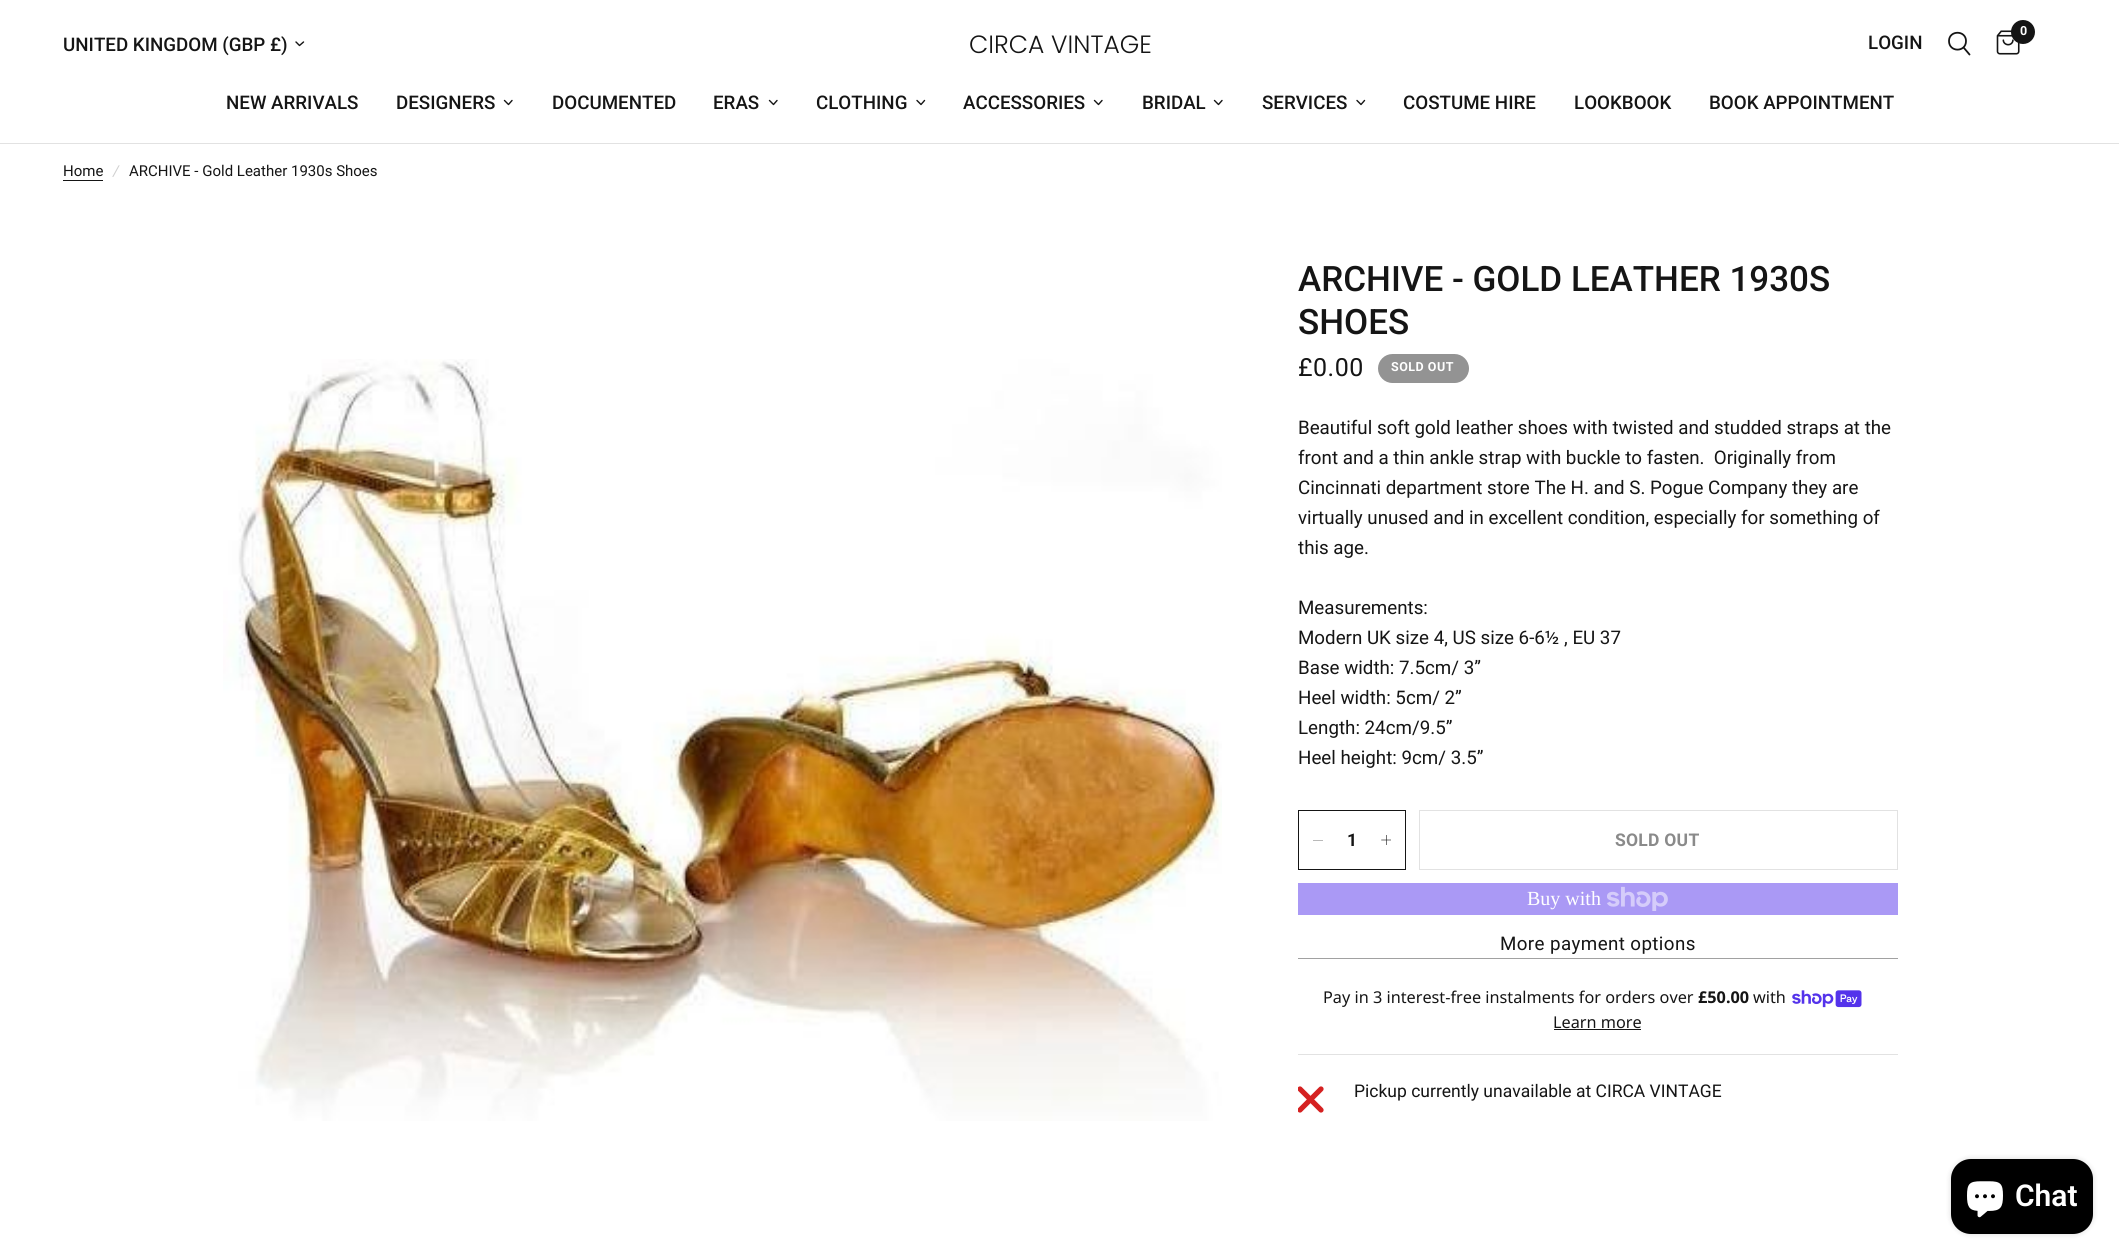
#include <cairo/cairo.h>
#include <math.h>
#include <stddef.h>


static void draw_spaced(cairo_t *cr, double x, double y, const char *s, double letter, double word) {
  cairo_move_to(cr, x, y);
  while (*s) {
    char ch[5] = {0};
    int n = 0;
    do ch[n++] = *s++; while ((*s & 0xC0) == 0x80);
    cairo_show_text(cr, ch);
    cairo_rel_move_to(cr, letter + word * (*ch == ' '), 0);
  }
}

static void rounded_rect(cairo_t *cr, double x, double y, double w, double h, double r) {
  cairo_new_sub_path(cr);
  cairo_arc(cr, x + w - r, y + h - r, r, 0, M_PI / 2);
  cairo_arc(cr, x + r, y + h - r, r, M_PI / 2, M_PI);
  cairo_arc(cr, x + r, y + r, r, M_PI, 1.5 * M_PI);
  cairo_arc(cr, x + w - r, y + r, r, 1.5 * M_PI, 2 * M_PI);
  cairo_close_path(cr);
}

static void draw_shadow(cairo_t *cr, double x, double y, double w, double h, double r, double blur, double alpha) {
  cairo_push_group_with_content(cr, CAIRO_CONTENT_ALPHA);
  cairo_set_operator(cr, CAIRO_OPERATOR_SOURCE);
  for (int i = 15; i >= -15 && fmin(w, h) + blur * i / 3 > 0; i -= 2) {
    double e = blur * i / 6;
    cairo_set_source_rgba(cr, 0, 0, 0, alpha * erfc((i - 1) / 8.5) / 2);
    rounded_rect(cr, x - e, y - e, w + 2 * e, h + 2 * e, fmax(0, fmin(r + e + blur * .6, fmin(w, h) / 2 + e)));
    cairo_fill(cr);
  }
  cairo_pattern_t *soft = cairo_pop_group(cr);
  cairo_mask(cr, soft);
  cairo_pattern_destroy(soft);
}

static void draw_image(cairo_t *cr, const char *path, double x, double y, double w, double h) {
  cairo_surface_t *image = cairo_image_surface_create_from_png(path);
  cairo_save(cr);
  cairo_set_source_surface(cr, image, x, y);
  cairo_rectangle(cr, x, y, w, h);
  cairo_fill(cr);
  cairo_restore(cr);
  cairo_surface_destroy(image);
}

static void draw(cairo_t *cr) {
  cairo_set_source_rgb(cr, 1, 1, 1);
  cairo_paint(cr);
  cairo_set_source_rgb(cr, 226 / 255.0, 226 / 255.0, 226 / 255.0);
  cairo_rectangle(cr, 0, 143, 2119, 1);
  cairo_fill(cr);
  cairo_new_path(cr);
  cairo_move_to(cr, 303.5, 42);
  cairo_line_to(cr, 299.5, 45.5);
  cairo_line_to(cr, 296, 42);
  cairo_set_source_rgb(cr, 21 / 255.0, 21 / 255.0, 21 / 255.0);
  cairo_set_line_width(cr, 1.4);
  cairo_set_line_cap(cr, CAIRO_LINE_CAP_ROUND);
  cairo_set_line_join(cr, CAIRO_LINE_JOIN_ROUND);
  cairo_stroke(cr);
  cairo_new_path(cr);
  cairo_move_to(cr, 1964, 48);
  cairo_line_to(cr, 1969.5, 54.5);
  cairo_move_to(cr, 1966, 41);
  cairo_curve_to(cr, 1966, 52.5, 1949, 52.5, 1949, 41);
  cairo_curve_to(cr, 1949, 30, 1966, 30, 1966, 41);
  cairo_close_path(cr);
  cairo_set_line_width(cr, 1.8);
  cairo_stroke(cr);
  draw_image(cr, "images/1.png", 1996, 30, 24, 25);
  cairo_arc(cr, 2023, 32, 12, 0, 2 * M_PI);
  cairo_fill(cr);
  cairo_new_path(cr);
  cairo_move_to(cr, 512, 100.5);
  cairo_line_to(cr, 508.5, 104.5);
  cairo_line_to(cr, 504.5, 100.5);
  cairo_set_line_width(cr, 1.4);
  cairo_stroke(cr);
  cairo_new_path(cr);
  cairo_move_to(cr, 777, 100.5);
  cairo_line_to(cr, 773.5, 104.5);
  cairo_line_to(cr, 769.5, 100.5);
  cairo_stroke(cr);
  cairo_new_path(cr);
  cairo_move_to(cr, 924.5, 100.5);
  cairo_line_to(cr, 921, 104.5);
  cairo_line_to(cr, 917, 100.5);
  cairo_stroke(cr);
  cairo_new_path(cr);
  cairo_move_to(cr, 1102, 100.5);
  cairo_line_to(cr, 1098.5, 104.5);
  cairo_line_to(cr, 1094.5, 100.5);
  cairo_stroke(cr);
  cairo_new_path(cr);
  cairo_move_to(cr, 1222, 100.5);
  cairo_line_to(cr, 1218.5, 104.5);
  cairo_line_to(cr, 1214.5, 100.5);
  cairo_stroke(cr);
  cairo_new_path(cr);
  cairo_move_to(cr, 1364.5, 100.5);
  cairo_line_to(cr, 1361, 104.5);
  cairo_line_to(cr, 1357, 100.5);
  cairo_stroke(cr);
  cairo_rectangle(cr, 63, 180, 40, 1);
  cairo_fill(cr);
  draw_image(cr, "images/2.png", 223, 359, 999, 762);
  cairo_set_source_rgb(cr, 147 / 255.0, 147 / 255.0, 147 / 255.0);
  rounded_rect(cr, 1378, 354, 91, 29, 14.5);
  cairo_fill(cr);
  cairo_rectangle(cr, 1298.5, 810.5, 107, 59);
  cairo_set_source_rgb(cr, 21 / 255.0, 21 / 255.0, 21 / 255.0);
  cairo_set_line_width(cr, 1);
  cairo_set_line_cap(cr, CAIRO_LINE_CAP_BUTT);
  cairo_set_line_join(cr, CAIRO_LINE_JOIN_MITER);
  cairo_stroke(cr);
  cairo_set_source_rgb(cr, 185 / 255.0, 185 / 255.0, 185 / 255.0);
  cairo_rectangle(cr, 1313, 840, 10, 1);
  cairo_fill(cr);
  draw_image(cr, "images/3.png", 1381, 835, 10, 10);
  cairo_rectangle(cr, 1419.5, 810.5, 478, 59);
  cairo_set_source_rgb(cr, 226 / 255.0, 226 / 255.0, 226 / 255.0);
  cairo_stroke(cr);
  cairo_set_source_rgb(cr, 170 / 255.0, 153 / 255.0, 245 / 255.0);
  cairo_rectangle(cr, 1298, 883, 600, 32);
  cairo_fill(cr);
  draw_image(cr, "images/4.png", 1607, 886, 61, 25);
  cairo_set_source_rgb(cr, 161 / 255.0, 161 / 255.0, 161 / 255.0);
  cairo_rectangle(cr, 1298, 958, 600, 1);
  cairo_fill(cr);
  cairo_set_source_rgb(cr, 226 / 255.0, 226 / 255.0, 226 / 255.0);
  cairo_rectangle(cr, 1298, 1054, 600, 1);
  cairo_fill(cr);
  draw_image(cr, "images/5.png", 1792, 990, 70, 18);
  cairo_set_source_rgb(cr, 21 / 255.0, 21 / 255.0, 21 / 255.0);
  cairo_rectangle(cr, 1554, 1029, 87, 1);
  cairo_fill(cr);
  cairo_save(cr);
  cairo_rectangle(cr, 1298, 1086, 26, 27);
  cairo_clip(cr);
  cairo_new_path(cr);
  cairo_move_to(cr, 1321, 1089);
  cairo_line_to(cr, 1300, 1110);
  cairo_move_to(cr, 1321, 1110);
  cairo_line_to(cr, 1300, 1089);
  cairo_set_source_rgb(cr, 213 / 255.0, 33 / 255.0, 33 / 255.0);
  cairo_set_line_width(cr, 5.2);
  cairo_set_line_cap(cr, CAIRO_LINE_CAP_ROUND);
  cairo_set_line_join(cr, CAIRO_LINE_JOIN_ROUND);
  cairo_stroke(cr);
  cairo_restore(cr);
  cairo_set_source_rgb(cr, 0, 0, 0);
  draw_shadow(cr, 1951, 1159, 142, 75, 20, 3, 0.15);
  cairo_set_source_rgb(cr, 0, 0, 0);
  rounded_rect(cr, 1951, 1159, 142, 75, 20);
  cairo_fill(cr);
  draw_image(cr, "images/6.png", 1967, 1181, 36, 37);
  cairo_select_font_face(cr, "Roboto Medium", CAIRO_FONT_SLANT_NORMAL, CAIRO_FONT_WEIGHT_NORMAL);
  cairo_set_font_size(cr, 18.75);
  cairo_set_source_rgb(cr, 21 / 255.0, 21 / 255.0, 21 / 255.0);
  cairo_move_to(cr, 63, 51);
  cairo_show_text(cr, "UNITED KINGDOM (GBP £)");
  cairo_select_font_face(cr, "Poppins Light", CAIRO_FONT_SLANT_NORMAL, CAIRO_FONT_WEIGHT_NORMAL);
  cairo_set_font_size(cr, 25);
  cairo_move_to(cr, 969, 53);
  cairo_show_text(cr, "CIRCA VINTAGE");
  cairo_select_font_face(cr, "Roboto Medium", CAIRO_FONT_SLANT_NORMAL, CAIRO_FONT_WEIGHT_NORMAL);
  cairo_set_font_size(cr, 18.75);
  cairo_move_to(cr, 1868, 49);
  cairo_show_text(cr, "LOGIN");
  cairo_select_font_face(cr, "Roboto", CAIRO_FONT_SLANT_NORMAL, CAIRO_FONT_WEIGHT_BOLD);
  cairo_set_font_size(cr, 12.5);
  cairo_set_source_rgb(cr, 1, 1, 1);
  cairo_move_to(cr, 2020, 35);
  cairo_show_text(cr, "0");
  cairo_select_font_face(cr, "Roboto Medium", CAIRO_FONT_SLANT_NORMAL, CAIRO_FONT_WEIGHT_NORMAL);
  cairo_set_font_size(cr, 18.75);
  cairo_set_source_rgb(cr, 21 / 255.0, 21 / 255.0, 21 / 255.0);
  cairo_move_to(cr, 226, 109);
  cairo_show_text(cr, "NEW ARRIVALS");
  cairo_move_to(cr, 396, 109);
  cairo_show_text(cr, "DESIGNERS");
  cairo_move_to(cr, 552, 109);
  cairo_show_text(cr, "DOCUMENTED");
  cairo_move_to(cr, 713, 109);
  cairo_show_text(cr, "ERAS");
  cairo_move_to(cr, 816, 109);
  cairo_show_text(cr, "CLOTHING");
  cairo_move_to(cr, 963, 109);
  cairo_show_text(cr, "ACCESSORIES");
  cairo_move_to(cr, 1142, 109);
  cairo_show_text(cr, "BRIDAL");
  cairo_move_to(cr, 1262, 109);
  cairo_show_text(cr, "SERVICES");
  cairo_move_to(cr, 1403, 109);
  cairo_show_text(cr, "COSTUME HIRE");
  cairo_move_to(cr, 1574, 109);
  cairo_show_text(cr, "LOOKBOOK");
  cairo_move_to(cr, 1709, 109);
  cairo_show_text(cr, "BOOK APPOINTMENT");
  cairo_select_font_face(cr, "Roboto", CAIRO_FONT_SLANT_NORMAL, CAIRO_FONT_WEIGHT_NORMAL);
  cairo_set_font_size(cr, 15);
  cairo_move_to(cr, 63, 176);
  cairo_show_text(cr, "Home");
  cairo_select_font_face(cr, "Roboto", CAIRO_FONT_SLANT_ITALIC, CAIRO_FONT_WEIGHT_NORMAL);
  cairo_set_source_rgb(cr, 208 / 255.0, 208 / 255.0, 208 / 255.0);
  cairo_move_to(cr, 113, 176);
  cairo_show_text(cr, "/");
  cairo_select_font_face(cr, "Roboto", CAIRO_FONT_SLANT_NORMAL, CAIRO_FONT_WEIGHT_NORMAL);
  cairo_set_source_rgb(cr, 21 / 255.0, 21 / 255.0, 21 / 255.0);
  cairo_move_to(cr, 129, 176);
  cairo_show_text(cr, "ARCHIVE - Gold Leather 1930s Shoes");
  cairo_select_font_face(cr, "Roboto Medium", CAIRO_FONT_SLANT_NORMAL, CAIRO_FONT_WEIGHT_NORMAL);
  cairo_set_font_size(cr, 35);
  cairo_move_to(cr, 1298, 291);
  cairo_show_text(cr, "ARCHIVE - GOLD LEATHER 1930S");
  cairo_move_to(cr, 1298, 334);
  cairo_show_text(cr, "SHOES");
  cairo_select_font_face(cr, "Roboto", CAIRO_FONT_SLANT_NORMAL, CAIRO_FONT_WEIGHT_NORMAL);
  cairo_set_font_size(cr, 25);
  draw_spaced(cr, 1298, 376, "£0.00", 0.5, 0);
  cairo_select_font_face(cr, "Roboto", CAIRO_FONT_SLANT_NORMAL, CAIRO_FONT_WEIGHT_BOLD);
  cairo_set_font_size(cr, 12.5);
  cairo_set_source_rgb(cr, 1, 1, 1);
  draw_spaced(cr, 1391, 371, "SOLD OUT", 0.5, 0);
  cairo_select_font_face(cr, "Roboto", CAIRO_FONT_SLANT_NORMAL, CAIRO_FONT_WEIGHT_NORMAL);
  cairo_set_font_size(cr, 18.75);
  cairo_set_source_rgb(cr, 21 / 255.0, 21 / 255.0, 21 / 255.0);
  cairo_move_to(cr, 1298, 434);
  cairo_show_text(cr, "Beautiful soft gold leather shoes with twisted and studded straps at the");
  cairo_move_to(cr, 1298, 464);
  cairo_show_text(cr, "front and a thin ankle strap with buckle to fasten.  Originally from");
  cairo_move_to(cr, 1298, 494);
  cairo_show_text(cr, "Cincinnati department store The H. and S. Pogue Company they are");
  cairo_move_to(cr, 1298, 524);
  cairo_show_text(cr, "virtually unused and in excellent condition, especially for something of");
  cairo_move_to(cr, 1298, 554);
  cairo_show_text(cr, "this age.");
  cairo_move_to(cr, 1298, 614);
  cairo_show_text(cr, "Measurements:");
  cairo_move_to(cr, 1298, 644);
  cairo_show_text(cr, "Modern UK size 4, US size 6-6½ , EU 37");
  cairo_move_to(cr, 1298, 674);
  cairo_show_text(cr, "Base width: 7.5cm/ 3”");
  cairo_move_to(cr, 1298, 704);
  cairo_show_text(cr, "Heel width: 5cm/ 2”");
  cairo_move_to(cr, 1298, 734);
  cairo_show_text(cr, "Length: 24cm/9.5”");
  cairo_move_to(cr, 1298, 764);
  cairo_show_text(cr, "Heel height: 9cm/ 3.5”");
  cairo_select_font_face(cr, "Roboto", CAIRO_FONT_SLANT_NORMAL, CAIRO_FONT_WEIGHT_BOLD);
  cairo_set_font_size(cr, 17.5);
  cairo_move_to(cr, 1347, 846);
  cairo_show_text(cr, "1");
  cairo_set_source_rgb(cr, 138 / 255.0, 138 / 255.0, 138 / 255.0);
  draw_spaced(cr, 1615, 846, "SOLD OUT", 0.25, 0);
  cairo_select_font_face(cr, "Liberation Serif", CAIRO_FONT_SLANT_NORMAL, CAIRO_FONT_WEIGHT_NORMAL);
  cairo_set_font_size(cr, 20);
  cairo_set_source_rgb(cr, 1, 1, 1);
  cairo_move_to(cr, 1527, 905);
  cairo_show_text(cr, "Buy with");
  cairo_select_font_face(cr, "Roboto", CAIRO_FONT_SLANT_NORMAL, CAIRO_FONT_WEIGHT_NORMAL);
  cairo_set_font_size(cr, 18.75);
  cairo_set_source_rgb(cr, 21 / 255.0, 21 / 255.0, 21 / 255.0);
  draw_spaced(cr, 1500, 950, "More payment options", 0.4, 0);
  cairo_select_font_face(cr, "Noto Sans", CAIRO_FONT_SLANT_NORMAL, CAIRO_FONT_WEIGHT_NORMAL);
  cairo_set_font_size(cr, 16.25);
  cairo_move_to(cr, 1323, 1003);
  cairo_show_text(cr, "Pay in 3 interest-free instalments for orders over");
  cairo_select_font_face(cr, "Noto Sans", CAIRO_FONT_SLANT_NORMAL, CAIRO_FONT_WEIGHT_BOLD);
  cairo_move_to(cr, 1698, 1003);
  cairo_show_text(cr, "£50.00");
  cairo_select_font_face(cr, "Noto Sans", CAIRO_FONT_SLANT_NORMAL, CAIRO_FONT_WEIGHT_NORMAL);
  cairo_move_to(cr, 1753, 1003);
  cairo_show_text(cr, "with");
  cairo_move_to(cr, 1553, 1028);
  cairo_show_text(cr, "Learn more");
  cairo_select_font_face(cr, "Roboto", CAIRO_FONT_SLANT_NORMAL, CAIRO_FONT_WEIGHT_NORMAL);
  cairo_set_font_size(cr, 17.5);
  cairo_move_to(cr, 1354, 1097);
  cairo_show_text(cr, "Pickup currently unavailable at CIRCA VINTAGE");
  cairo_select_font_face(cr, "Roboto SemiBold", CAIRO_FONT_SLANT_NORMAL, CAIRO_FONT_WEIGHT_NORMAL);
  cairo_set_font_size(cr, 30);
  cairo_set_source_rgb(cr, 1, 1, 1);
  cairo_move_to(cr, 2015, 1206);
  cairo_show_text(cr, "Chat");
}

int main(void) {
  cairo_surface_t *surface = cairo_image_surface_create(CAIRO_FORMAT_RGB24, 2119, 1260);
  cairo_t *cr = cairo_create(surface);
  cairo_font_options_t *options = cairo_font_options_create();
  cairo_font_options_set_hint_metrics(options, CAIRO_HINT_METRICS_OFF);
  cairo_font_options_set_hint_style(options, CAIRO_HINT_STYLE_NONE);
  cairo_set_font_options(cr, options);
  cairo_set_miter_limit(cr, 4);
  draw(cr);
  cairo_surface_write_to_png(surface, "out.png");
  cairo_font_options_destroy(options);
  cairo_destroy(cr);
  cairo_surface_destroy(surface);
  return 0;
}
